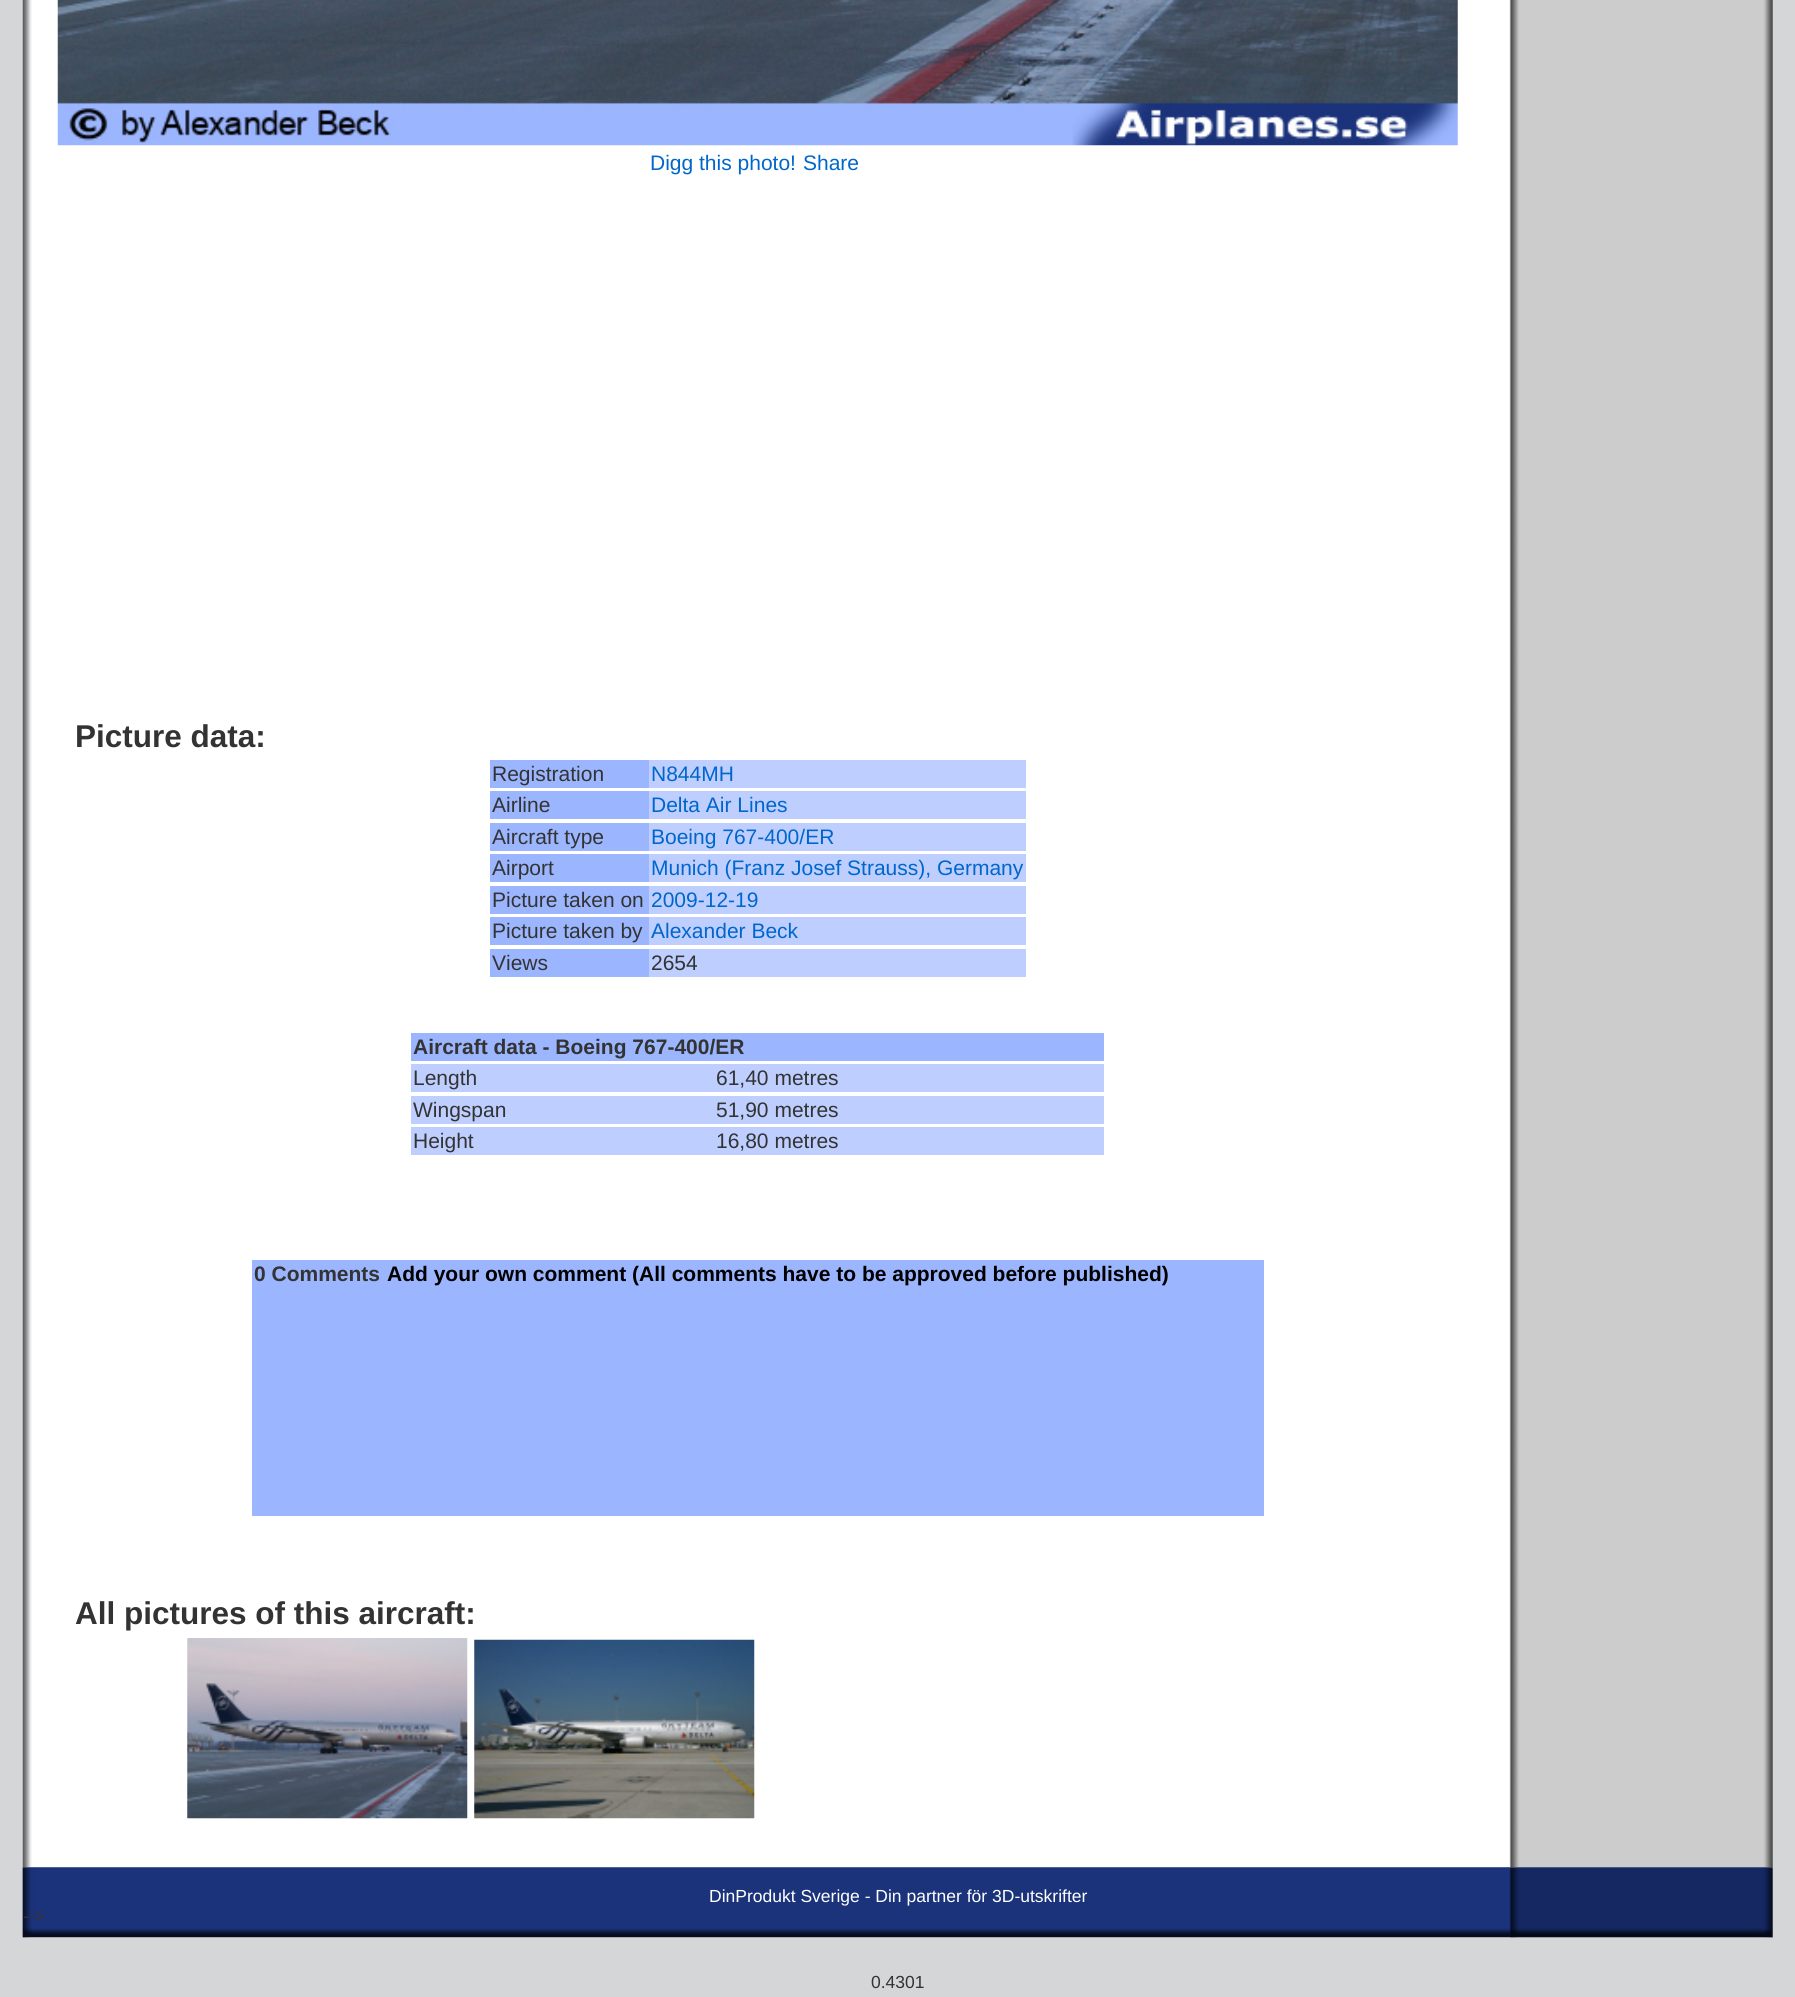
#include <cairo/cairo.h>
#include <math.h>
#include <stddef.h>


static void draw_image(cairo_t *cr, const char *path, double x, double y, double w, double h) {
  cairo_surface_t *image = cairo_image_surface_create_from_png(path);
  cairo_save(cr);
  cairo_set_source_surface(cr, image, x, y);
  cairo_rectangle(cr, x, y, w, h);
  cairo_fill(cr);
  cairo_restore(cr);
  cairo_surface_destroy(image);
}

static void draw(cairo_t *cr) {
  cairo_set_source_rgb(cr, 213 / 255.0, 214 / 255.0, 215 / 255.0);
  cairo_paint(cr);
  draw_image(cr, "images/1.png", 22, 0, 1751, 1938);
  draw_image(cr, "images/2.png", 57, 0, 1401, 146);
  cairo_set_source_rgb(cr, 155 / 255.0, 182 / 255.0, 254 / 255.0);
  cairo_rectangle(cr, 490, 760, 159, 28);
  cairo_fill(cr);
  cairo_set_source_rgb(cr, 190 / 255.0, 206 / 255.0, 1);
  cairo_rectangle(cr, 649, 760, 377, 28);
  cairo_fill(cr);
  cairo_set_source_rgb(cr, 155 / 255.0, 182 / 255.0, 254 / 255.0);
  cairo_rectangle(cr, 490, 791, 159, 28);
  cairo_fill(cr);
  cairo_set_source_rgb(cr, 190 / 255.0, 206 / 255.0, 1);
  cairo_rectangle(cr, 649, 791, 377, 28);
  cairo_fill(cr);
  cairo_set_source_rgb(cr, 155 / 255.0, 182 / 255.0, 254 / 255.0);
  cairo_rectangle(cr, 490, 823, 159, 28);
  cairo_fill(cr);
  cairo_set_source_rgb(cr, 190 / 255.0, 206 / 255.0, 1);
  cairo_rectangle(cr, 649, 823, 377, 28);
  cairo_fill(cr);
  cairo_set_source_rgb(cr, 155 / 255.0, 182 / 255.0, 254 / 255.0);
  cairo_rectangle(cr, 490, 854, 159, 28);
  cairo_fill(cr);
  cairo_set_source_rgb(cr, 190 / 255.0, 206 / 255.0, 1);
  cairo_rectangle(cr, 649, 854, 377, 28);
  cairo_fill(cr);
  cairo_set_source_rgb(cr, 155 / 255.0, 182 / 255.0, 254 / 255.0);
  cairo_rectangle(cr, 490, 886, 159, 28);
  cairo_fill(cr);
  cairo_set_source_rgb(cr, 190 / 255.0, 206 / 255.0, 1);
  cairo_rectangle(cr, 649, 886, 377, 28);
  cairo_fill(cr);
  cairo_set_source_rgb(cr, 155 / 255.0, 182 / 255.0, 254 / 255.0);
  cairo_rectangle(cr, 490, 917, 159, 28);
  cairo_fill(cr);
  cairo_set_source_rgb(cr, 190 / 255.0, 206 / 255.0, 1);
  cairo_rectangle(cr, 649, 917, 377, 28);
  cairo_fill(cr);
  cairo_set_source_rgb(cr, 155 / 255.0, 182 / 255.0, 254 / 255.0);
  cairo_rectangle(cr, 490, 949, 159, 28);
  cairo_fill(cr);
  cairo_set_source_rgb(cr, 190 / 255.0, 206 / 255.0, 1);
  cairo_rectangle(cr, 649, 949, 377, 28);
  cairo_fill(cr);
  cairo_set_source_rgb(cr, 155 / 255.0, 182 / 255.0, 254 / 255.0);
  cairo_rectangle(cr, 411, 1033, 693, 28);
  cairo_fill(cr);
  cairo_set_source_rgb(cr, 190 / 255.0, 206 / 255.0, 1);
  cairo_rectangle(cr, 411, 1064, 693, 28);
  cairo_fill(cr);
  cairo_rectangle(cr, 411, 1096, 693, 28);
  cairo_fill(cr);
  cairo_rectangle(cr, 411, 1127, 693, 28);
  cairo_fill(cr);
  cairo_set_source_rgb(cr, 155 / 255.0, 182 / 255.0, 254 / 255.0);
  cairo_rectangle(cr, 252, 1260, 1012, 256);
  cairo_fill(cr);
  draw_image(cr, "images/3.png", 187, 1638, 281, 181);
  draw_image(cr, "images/4.png", 474, 1639, 281, 180);
  cairo_set_source_rgb(cr, 238 / 255.0, 238 / 255.0, 238 / 255.0);
  cairo_rectangle(cr, 23, 1867, 1750, 70);
  cairo_fill(cr);
  draw_image(cr, "images/5.png", 22, 1867, 1751, 71);
  cairo_select_font_face(cr, "Liberation Sans", CAIRO_FONT_SLANT_NORMAL, CAIRO_FONT_WEIGHT_NORMAL);
  cairo_set_font_size(cr, 21);
  cairo_set_source_rgb(cr, 0, 102 / 255.0, 204 / 255.0);
  cairo_move_to(cr, 650, 170);
  cairo_show_text(cr, "Digg this photo!");
  cairo_move_to(cr, 803, 170);
  cairo_show_text(cr, "Share");
  cairo_select_font_face(cr, "Liberation Sans", CAIRO_FONT_SLANT_NORMAL, CAIRO_FONT_WEIGHT_BOLD);
  cairo_set_font_size(cr, 31.5);
  cairo_set_source_rgb(cr, 51 / 255.0, 51 / 255.0, 51 / 255.0);
  cairo_move_to(cr, 75, 747);
  cairo_show_text(cr, "Picture data:");
  cairo_select_font_face(cr, "Liberation Sans", CAIRO_FONT_SLANT_NORMAL, CAIRO_FONT_WEIGHT_NORMAL);
  cairo_set_font_size(cr, 21);
  cairo_move_to(cr, 492, 781);
  cairo_show_text(cr, "Registration");
  cairo_set_source_rgb(cr, 0, 102 / 255.0, 204 / 255.0);
  cairo_move_to(cr, 651, 781);
  cairo_show_text(cr, "N844MH");
  cairo_set_source_rgb(cr, 51 / 255.0, 51 / 255.0, 51 / 255.0);
  cairo_move_to(cr, 492, 812);
  cairo_show_text(cr, "Airline");
  cairo_set_source_rgb(cr, 0, 102 / 255.0, 204 / 255.0);
  cairo_move_to(cr, 651, 812);
  cairo_show_text(cr, "Delta Air Lines");
  cairo_set_source_rgb(cr, 51 / 255.0, 51 / 255.0, 51 / 255.0);
  cairo_move_to(cr, 492, 844);
  cairo_show_text(cr, "Aircraft type");
  cairo_set_source_rgb(cr, 0, 102 / 255.0, 204 / 255.0);
  cairo_move_to(cr, 651, 844);
  cairo_show_text(cr, "Boeing 767-400/ER");
  cairo_set_source_rgb(cr, 51 / 255.0, 51 / 255.0, 51 / 255.0);
  cairo_move_to(cr, 492, 875);
  cairo_show_text(cr, "Airport");
  cairo_set_source_rgb(cr, 0, 102 / 255.0, 204 / 255.0);
  cairo_move_to(cr, 651, 875);
  cairo_show_text(cr, "Munich (Franz Josef Strauss), Germany");
  cairo_set_source_rgb(cr, 51 / 255.0, 51 / 255.0, 51 / 255.0);
  cairo_move_to(cr, 492, 907);
  cairo_show_text(cr, "Picture taken on");
  cairo_set_source_rgb(cr, 0, 102 / 255.0, 204 / 255.0);
  cairo_move_to(cr, 651, 907);
  cairo_show_text(cr, "2009-12-19");
  cairo_set_source_rgb(cr, 51 / 255.0, 51 / 255.0, 51 / 255.0);
  cairo_move_to(cr, 492, 938);
  cairo_show_text(cr, "Picture taken by");
  cairo_set_source_rgb(cr, 0, 102 / 255.0, 204 / 255.0);
  cairo_move_to(cr, 651, 938);
  cairo_show_text(cr, "Alexander Beck");
  cairo_set_source_rgb(cr, 51 / 255.0, 51 / 255.0, 51 / 255.0);
  cairo_move_to(cr, 492, 970);
  cairo_show_text(cr, "Views");
  cairo_move_to(cr, 651, 970);
  cairo_show_text(cr, "2654");
  cairo_select_font_face(cr, "Liberation Sans", CAIRO_FONT_SLANT_NORMAL, CAIRO_FONT_WEIGHT_BOLD);
  cairo_move_to(cr, 413, 1054);
  cairo_show_text(cr, "Aircraft data - Boeing 767-400/ER");
  cairo_select_font_face(cr, "Liberation Sans", CAIRO_FONT_SLANT_NORMAL, CAIRO_FONT_WEIGHT_NORMAL);
  cairo_move_to(cr, 413, 1085);
  cairo_show_text(cr, "Length");
  cairo_move_to(cr, 716, 1085);
  cairo_show_text(cr, "61,40 metres");
  cairo_move_to(cr, 413, 1117);
  cairo_show_text(cr, "Wingspan");
  cairo_move_to(cr, 716, 1117);
  cairo_show_text(cr, "51,90 metres");
  cairo_move_to(cr, 413, 1148);
  cairo_show_text(cr, "Height");
  cairo_move_to(cr, 716, 1148);
  cairo_show_text(cr, "16,80 metres");
  cairo_select_font_face(cr, "Liberation Sans", CAIRO_FONT_SLANT_NORMAL, CAIRO_FONT_WEIGHT_BOLD);
  cairo_move_to(cr, 254, 1281);
  cairo_show_text(cr, "0 Comments");
  cairo_set_source_rgb(cr, 0, 0, 0);
  cairo_move_to(cr, 387, 1281);
  cairo_show_text(cr, "Add your own comment (All comments have to be approved before published)");
  cairo_set_font_size(cr, 31.5);
  cairo_set_source_rgb(cr, 51 / 255.0, 51 / 255.0, 51 / 255.0);
  cairo_move_to(cr, 75, 1624);
  cairo_show_text(cr, "All pictures of this aircraft:");
  cairo_select_font_face(cr, "Liberation Sans", CAIRO_FONT_SLANT_NORMAL, CAIRO_FONT_WEIGHT_NORMAL);
  cairo_set_font_size(cr, 17.5);
  cairo_set_source_rgb(cr, 1, 1, 1);
  cairo_move_to(cr, 709, 1902);
  cairo_show_text(cr, "DinProdukt Sverige - Din partner för 3D-utskrifter");
  cairo_set_source_rgb(cr, 51 / 255.0, 51 / 255.0, 51 / 255.0);
  cairo_move_to(cr, 23, 1922);
  cairo_show_text(cr, "-->");
  cairo_move_to(cr, 871, 1988);
  cairo_show_text(cr, "0.4301");
}

int main(void) {
  cairo_surface_t *surface = cairo_image_surface_create(CAIRO_FORMAT_RGB24, 1795, 1997);
  cairo_t *cr = cairo_create(surface);
  cairo_font_options_t *options = cairo_font_options_create();
  cairo_font_options_set_hint_metrics(options, CAIRO_HINT_METRICS_OFF);
  cairo_font_options_set_hint_style(options, CAIRO_HINT_STYLE_NONE);
  cairo_set_font_options(cr, options);
  cairo_set_miter_limit(cr, 4);
  draw(cr);
  cairo_surface_write_to_png(surface, "out.png");
  cairo_font_options_destroy(options);
  cairo_destroy(cr);
  cairo_surface_destroy(surface);
  return 0;
}
